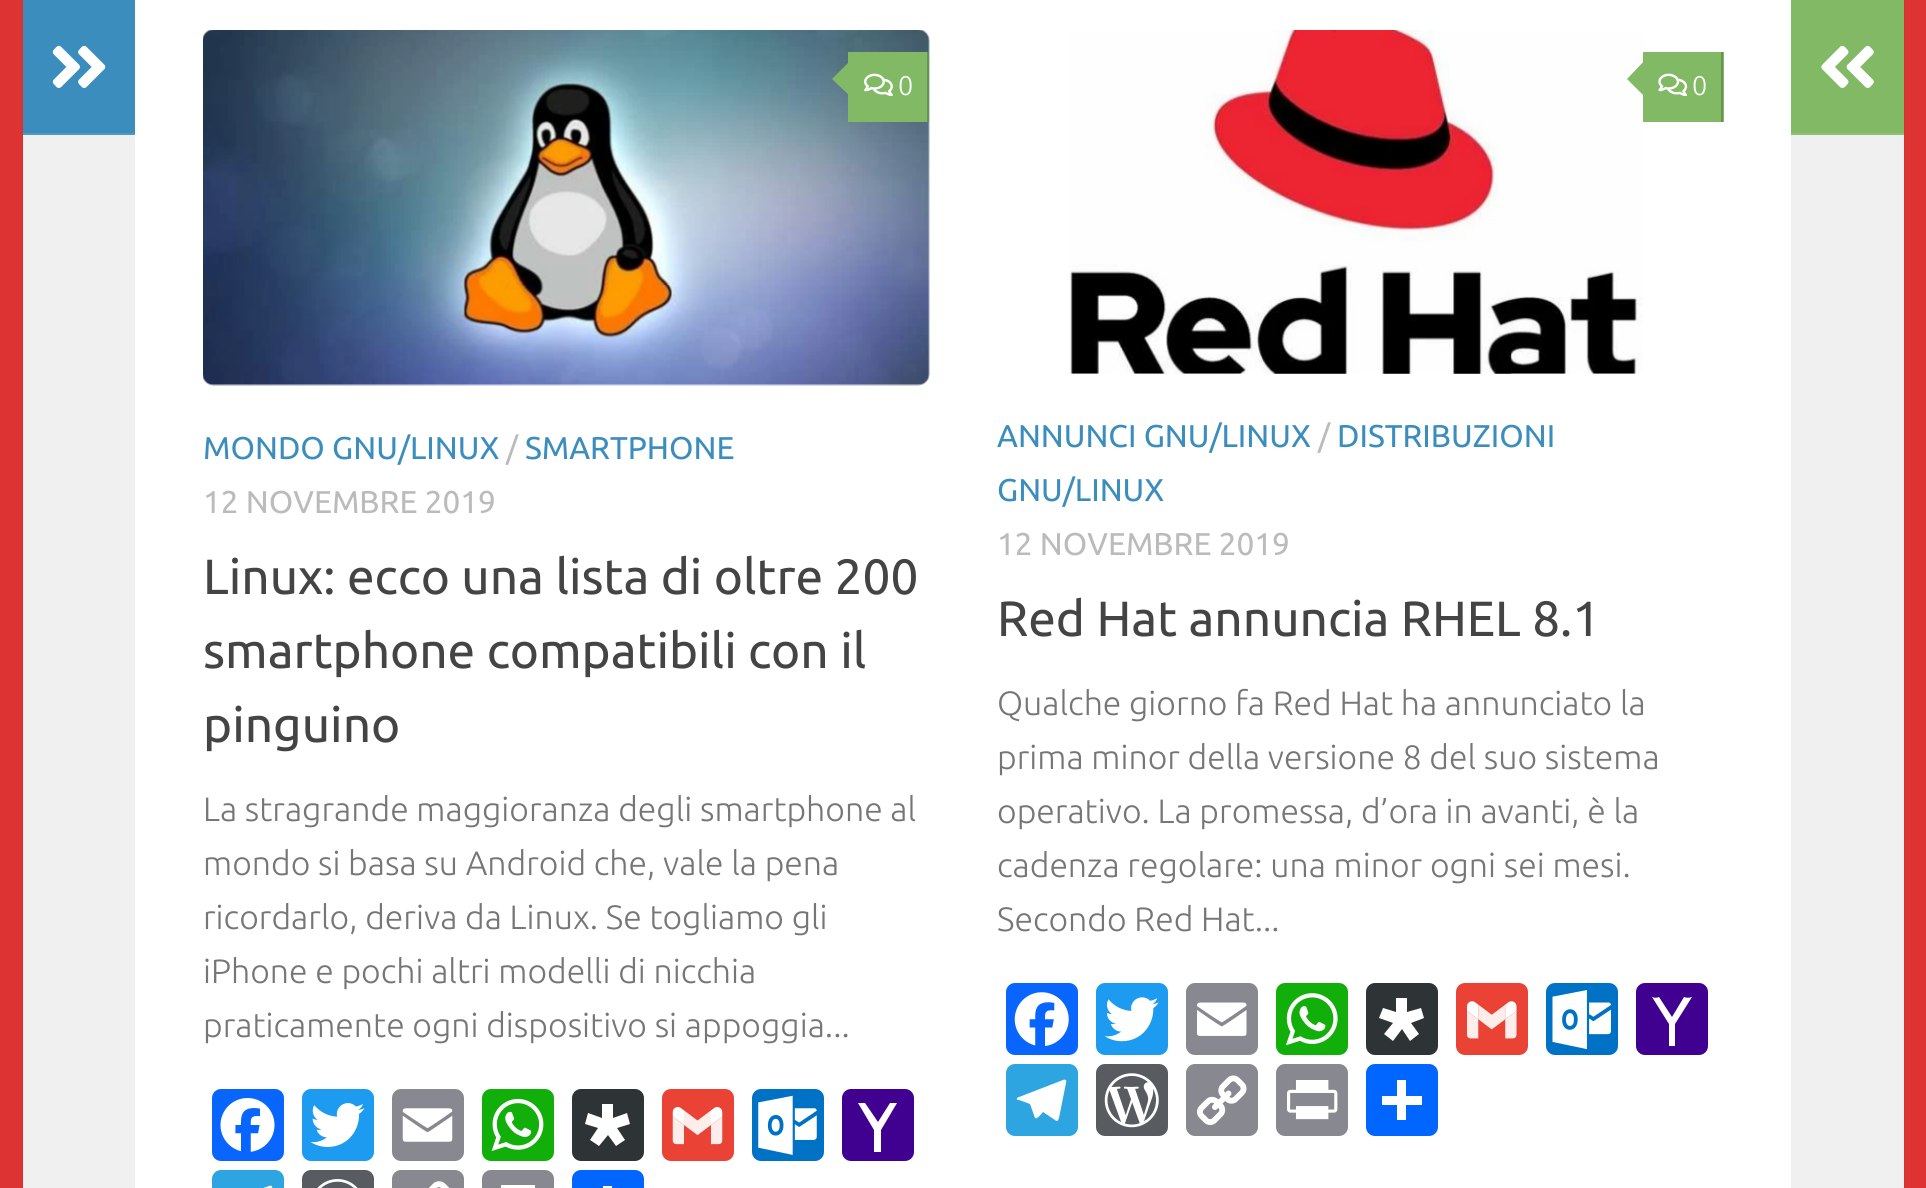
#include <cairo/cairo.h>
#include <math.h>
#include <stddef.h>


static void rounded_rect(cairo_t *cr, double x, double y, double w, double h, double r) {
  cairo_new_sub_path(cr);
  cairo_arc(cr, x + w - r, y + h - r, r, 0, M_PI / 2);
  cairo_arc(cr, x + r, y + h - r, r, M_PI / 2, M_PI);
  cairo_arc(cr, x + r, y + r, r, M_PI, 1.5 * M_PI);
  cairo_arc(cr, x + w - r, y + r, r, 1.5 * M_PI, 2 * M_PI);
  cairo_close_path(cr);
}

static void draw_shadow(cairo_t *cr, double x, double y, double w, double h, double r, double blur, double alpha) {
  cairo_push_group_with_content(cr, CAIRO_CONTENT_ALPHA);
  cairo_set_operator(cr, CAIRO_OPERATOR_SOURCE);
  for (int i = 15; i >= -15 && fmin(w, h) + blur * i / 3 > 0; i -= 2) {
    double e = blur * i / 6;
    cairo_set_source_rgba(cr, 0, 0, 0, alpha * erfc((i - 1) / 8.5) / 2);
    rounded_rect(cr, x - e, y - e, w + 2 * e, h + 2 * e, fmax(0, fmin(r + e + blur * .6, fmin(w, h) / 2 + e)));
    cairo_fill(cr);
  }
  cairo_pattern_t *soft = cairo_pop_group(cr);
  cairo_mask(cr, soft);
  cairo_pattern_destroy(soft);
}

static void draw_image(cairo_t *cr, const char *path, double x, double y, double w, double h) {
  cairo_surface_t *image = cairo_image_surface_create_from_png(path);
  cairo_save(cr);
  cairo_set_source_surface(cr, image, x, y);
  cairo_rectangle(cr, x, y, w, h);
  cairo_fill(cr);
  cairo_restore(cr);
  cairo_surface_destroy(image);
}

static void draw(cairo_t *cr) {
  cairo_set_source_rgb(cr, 221 / 255.0, 51 / 255.0, 51 / 255.0);
  cairo_paint(cr);
  cairo_set_source_rgb(cr, 0, 0, 0);
  draw_shadow(cr, 23, -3, 1881, 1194, 0, 1, 0.1);
  cairo_set_source_rgb(cr, 1, 1, 1);
  cairo_rectangle(cr, 135, 0, 1656, 1188);
  cairo_fill(cr);
  cairo_set_source_rgb(cr, 240 / 255.0, 240 / 255.0, 240 / 255.0);
  cairo_rectangle(cr, 23, 135, 112, 1053);
  cairo_fill(cr);
  cairo_set_source_rgb(cr, 59 / 255.0, 141 / 255.0, 189 / 255.0);
  cairo_rectangle(cr, 23, 0, 112, 133);
  cairo_fill(cr);
  cairo_set_source_rgb(cr, 79 / 255.0, 152 / 255.0, 196 / 255.0);
  cairo_rectangle(cr, 23, 133, 112, 2);
  cairo_fill(cr);
  draw_image(cr, "images/1.png", 52, 45, 54, 43);
  draw_image(cr, "images/2.png", 203, 30, 727, 356);
  cairo_set_source_rgb(cr, 130 / 255.0, 185 / 255.0, 101 / 255.0);
  cairo_rectangle(cr, 848, 52, 79, 70);
  cairo_fill(cr);
  cairo_set_source_rgb(cr, 104 / 255.0, 148 / 255.0, 81 / 255.0);
  cairo_rectangle(cr, 927, 52, 2, 70);
  cairo_fill(cr);
  cairo_set_source_rgb(cr, 130 / 255.0, 185 / 255.0, 101 / 255.0);
  cairo_new_path(cr);
  cairo_move_to(cr, 853, 58);
  cairo_line_to(cr, 853, 99);
  cairo_line_to(cr, 832, 79);
  cairo_close_path(cr);
  cairo_fill(cr);
  draw_image(cr, "images/3.png", 864, 73, 29, 24);
  cairo_set_source_rgb(cr, 8 / 255.0, 102 / 255.0, 1);
  rounded_rect(cr, 212, 1089, 72, 72, 9);
  cairo_fill(cr);
  draw_image(cr, "images/4.png", 220, 1098, 55, 54);
  cairo_set_source_rgb(cr, 29 / 255.0, 155 / 255.0, 240 / 255.0);
  rounded_rect(cr, 302, 1089, 72, 72, 9);
  cairo_fill(cr);
  draw_image(cr, "images/5.png", 310, 1103, 55, 44);
  cairo_set_source_rgb(cr, 136 / 255.0, 137 / 255.0, 144 / 255.0);
  rounded_rect(cr, 392, 1089, 72, 72, 9);
  cairo_fill(cr);
  draw_image(cr, "images/6.png", 402, 1108, 51, 34);
  cairo_set_source_rgb(cr, 18 / 255.0, 175 / 255.0, 10 / 255.0);
  rounded_rect(cr, 482, 1089, 72, 72, 9);
  cairo_fill(cr);
  draw_image(cr, "images/7.png", 491, 1098, 53, 53);
  cairo_set_source_rgb(cr, 46 / 255.0, 52 / 255.0, 54 / 255.0);
  rounded_rect(cr, 572, 1089, 72, 72, 9);
  cairo_fill(cr);
  cairo_set_source_rgb(cr, 1, 1, 1);
  cairo_new_path(cr);
  cairo_move_to(cr, 602, 1104);
  cairo_line_to(cr, 602, 1118);
  cairo_line_to(cr, 588, 1113);
  cairo_line_to(cr, 585, 1124);
  cairo_line_to(cr, 598, 1128);
  cairo_line_to(cr, 590, 1140);
  cairo_line_to(cr, 599, 1146);
  cairo_line_to(cr, 608, 1135);
  cairo_line_to(cr, 616, 1146);
  cairo_line_to(cr, 625, 1140);
  cairo_line_to(cr, 617, 1128);
  cairo_line_to(cr, 630, 1124);
  cairo_line_to(cr, 627, 1113);
  cairo_line_to(cr, 613, 1118);
  cairo_line_to(cr, 613, 1104);
  cairo_close_path(cr);
  cairo_fill(cr);
  cairo_set_source_rgb(cr, 234 / 255.0, 67 / 255.0, 53 / 255.0);
  rounded_rect(cr, 662, 1089, 72, 72, 9);
  cairo_fill(cr);
  draw_image(cr, "images/8.png", 672, 1107, 51, 38);
  cairo_set_source_rgb(cr, 0, 114 / 255.0, 198 / 255.0);
  rounded_rect(cr, 752, 1089, 72, 72, 9);
  cairo_fill(cr);
  draw_image(cr, "images/9.png", 758, 1095, 59, 60);
  cairo_set_source_rgb(cr, 64 / 255.0, 0, 144 / 255.0);
  rounded_rect(cr, 842, 1089, 72, 72, 9);
  cairo_fill(cr);
  cairo_set_source_rgb(cr, 1, 1, 1);
  cairo_new_path(cr);
  cairo_move_to(cr, 890, 1103);
  cairo_curve_to(cr, 892, 1103, 895, 1103, 897, 1103);
  cairo_line_to(cr, 881, 1130);
  cairo_line_to(cr, 881, 1152);
  cairo_curve_to(cr, 879, 1152, 876, 1152, 874, 1152);
  cairo_line_to(cr, 874, 1130);
  cairo_line_to(cr, 858, 1103);
  cairo_curve_to(cr, 860, 1103, 863, 1103, 865, 1103);
  cairo_line_to(cr, 878, 1122);
  cairo_close_path(cr);
  cairo_fill(cr);
  cairo_set_source_rgb(cr, 44 / 255.0, 165 / 255.0, 224 / 255.0);
  rounded_rect(cr, 212, 1170, 72, 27, 9);
  cairo_fill(cr);
  cairo_set_source_rgb(cr, 1, 1, 1);
  cairo_new_path(cr);
  cairo_move_to(cr, 269, 1186);
  cairo_line_to(cr, 225, 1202);
  cairo_curve_to(cr, 222, 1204, 222, 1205, 225, 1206);
  cairo_line_to(cr, 236, 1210);
  cairo_line_to(cr, 240, 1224);
  cairo_curve_to(cr, 242, 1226, 248, 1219, 249, 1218);
  cairo_line_to(cr, 260, 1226);
  cairo_curve_to(cr, 263, 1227, 264, 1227, 265, 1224);
  cairo_line_to(cr, 272, 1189);
  cairo_curve_to(cr, 273, 1186, 271, 1185, 269, 1186);
  cairo_close_path(cr);
  cairo_fill(cr);
  cairo_set_source_rgb(cr, 88 / 255.0, 92 / 255.0, 96 / 255.0);
  rounded_rect(cr, 302, 1170, 72, 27, 9);
  cairo_fill(cr);
  draw_image(cr, "images/10.png", 317, 1179, 41, 9);
  cairo_set_source_rgb(cr, 136 / 255.0, 137 / 255.0, 144 / 255.0);
  rounded_rect(cr, 392, 1170, 72, 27, 9);
  cairo_fill(cr);
  draw_image(cr, "images/11.png", 428, 1181, 22, 7);
  rounded_rect(cr, 482, 1170, 72, 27, 9);
  cairo_fill(cr);
  cairo_set_source_rgb(cr, 1, 1, 1);
  cairo_rectangle(cr, 501, 1185, 34, 3);
  cairo_fill(cr);
  cairo_set_source_rgb(cr, 1 / 255.0, 102 / 255.0, 1);
  rounded_rect(cr, 572, 1170, 72, 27, 9);
  cairo_fill(cr);
  cairo_set_source_rgb(cr, 1, 1, 1);
  cairo_rectangle(cr, 603, 1186, 9, 2);
  cairo_fill(cr);
  draw_image(cr, "images/12.png", 1069, 30, 574, 344);
  cairo_set_source_rgb(cr, 130 / 255.0, 185 / 255.0, 101 / 255.0);
  cairo_rectangle(cr, 1643, 52, 81, 70);
  cairo_fill(cr);
  cairo_set_source_rgb(cr, 104 / 255.0, 148 / 255.0, 81 / 255.0);
  cairo_rectangle(cr, 1721, 52, 2, 70);
  cairo_fill(cr);
  cairo_set_source_rgb(cr, 130 / 255.0, 185 / 255.0, 101 / 255.0);
  cairo_new_path(cr);
  cairo_move_to(cr, 1647, 58);
  cairo_line_to(cr, 1647, 99);
  cairo_line_to(cr, 1627, 79);
  cairo_close_path(cr);
  cairo_fill(cr);
  draw_image(cr, "images/13.png", 1658, 73, 30, 24);
  cairo_set_source_rgb(cr, 8 / 255.0, 102 / 255.0, 1);
  rounded_rect(cr, 1006, 983, 72, 72, 9);
  cairo_fill(cr);
  draw_image(cr, "images/14.png", 1014, 992, 55, 54);
  cairo_set_source_rgb(cr, 29 / 255.0, 155 / 255.0, 240 / 255.0);
  rounded_rect(cr, 1096, 983, 72, 72, 9);
  cairo_fill(cr);
  draw_image(cr, "images/15.png", 1105, 997, 54, 45);
  cairo_set_source_rgb(cr, 136 / 255.0, 137 / 255.0, 144 / 255.0);
  rounded_rect(cr, 1186, 983, 72, 72, 9);
  cairo_fill(cr);
  draw_image(cr, "images/16.png", 1197, 1002, 50, 34);
  cairo_set_source_rgb(cr, 18 / 255.0, 175 / 255.0, 10 / 255.0);
  rounded_rect(cr, 1276, 983, 72, 72, 9);
  cairo_fill(cr);
  draw_image(cr, "images/17.png", 1286, 993, 52, 53);
  cairo_set_source_rgb(cr, 46 / 255.0, 52 / 255.0, 54 / 255.0);
  rounded_rect(cr, 1366, 983, 72, 72, 9);
  cairo_fill(cr);
  cairo_set_source_rgb(cr, 1, 1, 1);
  cairo_new_path(cr);
  cairo_move_to(cr, 1396, 998);
  cairo_line_to(cr, 1396, 1012);
  cairo_line_to(cr, 1383, 1008);
  cairo_line_to(cr, 1379, 1018);
  cairo_line_to(cr, 1393, 1023);
  cairo_line_to(cr, 1384, 1034);
  cairo_line_to(cr, 1393, 1041);
  cairo_line_to(cr, 1402, 1029);
  cairo_line_to(cr, 1410, 1041);
  cairo_line_to(cr, 1419, 1034);
  cairo_line_to(cr, 1411, 1023);
  cairo_line_to(cr, 1424, 1018);
  cairo_line_to(cr, 1421, 1008);
  cairo_line_to(cr, 1407, 1012);
  cairo_line_to(cr, 1407, 998);
  cairo_close_path(cr);
  cairo_fill(cr);
  cairo_set_source_rgb(cr, 234 / 255.0, 67 / 255.0, 53 / 255.0);
  rounded_rect(cr, 1456, 983, 72, 72, 9);
  cairo_fill(cr);
  draw_image(cr, "images/18.png", 1467, 1001, 50, 38);
  cairo_set_source_rgb(cr, 0, 114 / 255.0, 198 / 255.0);
  rounded_rect(cr, 1546, 983, 72, 72, 9);
  cairo_fill(cr);
  draw_image(cr, "images/19.png", 1552, 990, 59, 60);
  cairo_set_source_rgb(cr, 64 / 255.0, 0, 144 / 255.0);
  rounded_rect(cr, 1636, 983, 72, 72, 9);
  cairo_fill(cr);
  cairo_set_source_rgb(cr, 1, 1, 1);
  cairo_new_path(cr);
  cairo_move_to(cr, 1684, 997);
  cairo_curve_to(cr, 1687, 998, 1689, 998, 1692, 997);
  cairo_line_to(cr, 1675, 1024);
  cairo_line_to(cr, 1675, 1046);
  cairo_curve_to(cr, 1673, 1046, 1671, 1046, 1669, 1046);
  cairo_line_to(cr, 1669, 1024);
  cairo_line_to(cr, 1652, 997);
  cairo_curve_to(cr, 1654, 998, 1657, 998, 1659, 997);
  cairo_line_to(cr, 1672, 1017);
  cairo_close_path(cr);
  cairo_fill(cr);
  cairo_set_source_rgb(cr, 44 / 255.0, 165 / 255.0, 224 / 255.0);
  rounded_rect(cr, 1006, 1064, 72, 72, 9);
  cairo_fill(cr);
  cairo_set_source_rgb(cr, 1, 1, 1);
  cairo_new_path(cr);
  cairo_move_to(cr, 1063, 1080);
  cairo_line_to(cr, 1019, 1097);
  cairo_curve_to(cr, 1016, 1098, 1016, 1100, 1019, 1100);
  cairo_line_to(cr, 1030, 1104);
  cairo_line_to(cr, 1035, 1118);
  cairo_curve_to(cr, 1037, 1120, 1042, 1113, 1043, 1112);
  cairo_line_to(cr, 1055, 1120);
  cairo_curve_to(cr, 1057, 1122, 1058, 1121, 1059, 1118);
  cairo_line_to(cr, 1066, 1083);
  cairo_curve_to(cr, 1067, 1080, 1065, 1079, 1063, 1080);
  cairo_close_path(cr);
  cairo_fill(cr);
  cairo_set_source_rgb(cr, 88 / 255.0, 92 / 255.0, 96 / 255.0);
  rounded_rect(cr, 1096, 1064, 72, 72, 9);
  cairo_fill(cr);
  draw_image(cr, "images/20.png", 1104, 1073, 55, 55);
  cairo_set_source_rgb(cr, 136 / 255.0, 137 / 255.0, 144 / 255.0);
  rounded_rect(cr, 1186, 1064, 72, 72, 9);
  cairo_fill(cr);
  draw_image(cr, "images/21.png", 1197, 1075, 50, 50);
  rounded_rect(cr, 1276, 1064, 72, 72, 9);
  cairo_fill(cr);
  draw_image(cr, "images/22.png", 1287, 1080, 51, 40);
  cairo_set_source_rgb(cr, 1 / 255.0, 102 / 255.0, 1);
  rounded_rect(cr, 1366, 1064, 72, 72, 9);
  cairo_fill(cr);
  cairo_set_source_rgb(cr, 1, 1, 1);
  cairo_rectangle(cr, 1397, 1080, 9, 40);
  cairo_fill(cr);
  cairo_rectangle(cr, 1382, 1096, 40, 9);
  cairo_fill(cr);
  cairo_set_source_rgb(cr, 130 / 255.0, 185 / 255.0, 101 / 255.0);
  cairo_rectangle(cr, 1791, 0, 113, 133);
  cairo_fill(cr);
  cairo_set_source_rgb(cr, 143 / 255.0, 192 / 255.0, 116 / 255.0);
  cairo_rectangle(cr, 1791, 133, 113, 2);
  cairo_fill(cr);
  draw_image(cr, "images/23.png", 1821, 45, 53, 43);
  cairo_set_source_rgb(cr, 240 / 255.0, 240 / 255.0, 240 / 255.0);
  cairo_rectangle(cr, 1791, 135, 113, 1053);
  cairo_fill(cr);
  cairo_select_font_face(cr, "Ubuntu Light", CAIRO_FONT_SLANT_NORMAL, CAIRO_FONT_WEIGHT_NORMAL);
  cairo_set_font_size(cr, 27);
  cairo_set_source_rgb(cr, 1, 1, 1);
  cairo_move_to(cr, 898, 95);
  cairo_show_text(cr, "0");
  cairo_select_font_face(cr, "Ubuntu", CAIRO_FONT_SLANT_NORMAL, CAIRO_FONT_WEIGHT_NORMAL);
  cairo_set_font_size(cr, 31.5);
  cairo_set_source_rgb(cr, 59 / 255.0, 141 / 255.0, 189 / 255.0);
  cairo_move_to(cr, 203, 459);
  cairo_show_text(cr, "MONDO GNU/LINUX");
  cairo_set_source_rgb(cr, 187 / 255.0, 187 / 255.0, 187 / 255.0);
  cairo_move_to(cr, 506, 459);
  cairo_show_text(cr, "/");
  cairo_set_source_rgb(cr, 59 / 255.0, 141 / 255.0, 189 / 255.0);
  cairo_move_to(cr, 525, 459);
  cairo_show_text(cr, "SMARTPHONE");
  cairo_set_source_rgb(cr, 187 / 255.0, 187 / 255.0, 187 / 255.0);
  cairo_move_to(cr, 203, 513);
  cairo_show_text(cr, "12 NOVEMBRE 2019");
  cairo_set_font_size(cr, 49.5);
  cairo_set_source_rgb(cr, 68 / 255.0, 68 / 255.0, 68 / 255.0);
  cairo_move_to(cr, 203, 594);
  cairo_show_text(cr, "Linux: ecco una lista di oltre 200");
  cairo_move_to(cr, 203, 668);
  cairo_show_text(cr, "smartphone compatibili con il");
  cairo_move_to(cr, 203, 742);
  cairo_show_text(cr, "pinguino");
  cairo_select_font_face(cr, "Ubuntu Light", CAIRO_FONT_SLANT_NORMAL, CAIRO_FONT_WEIGHT_NORMAL);
  cairo_set_font_size(cr, 33.75);
  cairo_set_source_rgb(cr, 118 / 255.0, 118 / 255.0, 118 / 255.0);
  cairo_move_to(cr, 203, 821);
  cairo_show_text(cr, "La stragrande maggioranza degli smartphone al");
  cairo_move_to(cr, 203, 875);
  cairo_show_text(cr, "mondo si basa su Android che, vale la pena");
  cairo_move_to(cr, 203, 929);
  cairo_show_text(cr, "ricordarlo, deriva da Linux. Se togliamo gli");
  cairo_move_to(cr, 203, 983);
  cairo_show_text(cr, "iPhone e pochi altri modelli di nicchia");
  cairo_move_to(cr, 203, 1037);
  cairo_show_text(cr, "praticamente ogni dispositivo si appoggia...");
  cairo_set_font_size(cr, 27);
  cairo_set_source_rgb(cr, 1, 1, 1);
  cairo_move_to(cr, 1692, 95);
  cairo_show_text(cr, "0");
  cairo_select_font_face(cr, "Ubuntu", CAIRO_FONT_SLANT_NORMAL, CAIRO_FONT_WEIGHT_NORMAL);
  cairo_set_font_size(cr, 31.5);
  cairo_set_source_rgb(cr, 59 / 255.0, 141 / 255.0, 189 / 255.0);
  cairo_move_to(cr, 997, 447);
  cairo_show_text(cr, "ANNUNCI GNU/LINUX");
  cairo_set_source_rgb(cr, 187 / 255.0, 187 / 255.0, 187 / 255.0);
  cairo_move_to(cr, 1318, 447);
  cairo_show_text(cr, "/");
  cairo_set_source_rgb(cr, 59 / 255.0, 141 / 255.0, 189 / 255.0);
  cairo_move_to(cr, 1337, 447);
  cairo_show_text(cr, "DISTRIBUZIONI");
  cairo_move_to(cr, 997, 501);
  cairo_show_text(cr, "GNU/LINUX");
  cairo_set_source_rgb(cr, 187 / 255.0, 187 / 255.0, 187 / 255.0);
  cairo_move_to(cr, 997, 555);
  cairo_show_text(cr, "12 NOVEMBRE 2019");
  cairo_set_font_size(cr, 49.5);
  cairo_set_source_rgb(cr, 68 / 255.0, 68 / 255.0, 68 / 255.0);
  cairo_move_to(cr, 997, 636);
  cairo_show_text(cr, "Red Hat annuncia RHEL 8.1");
  cairo_select_font_face(cr, "Ubuntu Light", CAIRO_FONT_SLANT_NORMAL, CAIRO_FONT_WEIGHT_NORMAL);
  cairo_set_font_size(cr, 33.75);
  cairo_set_source_rgb(cr, 118 / 255.0, 118 / 255.0, 118 / 255.0);
  cairo_move_to(cr, 997, 715);
  cairo_show_text(cr, "Qualche giorno fa Red Hat ha annunciato la");
  cairo_move_to(cr, 997, 769);
  cairo_show_text(cr, "prima minor della versione 8 del suo sistema");
  cairo_move_to(cr, 997, 823);
  cairo_show_text(cr, "operativo. La promessa, d’ora in avanti, è la");
  cairo_move_to(cr, 997, 877);
  cairo_show_text(cr, "cadenza regolare: una minor ogni sei mesi.");
  cairo_move_to(cr, 997, 931);
  cairo_show_text(cr, "Secondo Red Hat...");
}

int main(void) {
  cairo_surface_t *surface = cairo_image_surface_create(CAIRO_FORMAT_RGB24, 1926, 1188);
  cairo_t *cr = cairo_create(surface);
  cairo_font_options_t *options = cairo_font_options_create();
  cairo_font_options_set_hint_metrics(options, CAIRO_HINT_METRICS_OFF);
  cairo_font_options_set_hint_style(options, CAIRO_HINT_STYLE_NONE);
  cairo_set_font_options(cr, options);
  cairo_set_miter_limit(cr, 4);
  draw(cr);
  cairo_surface_write_to_png(surface, "out.png");
  cairo_font_options_destroy(options);
  cairo_destroy(cr);
  cairo_surface_destroy(surface);
  return 0;
}
